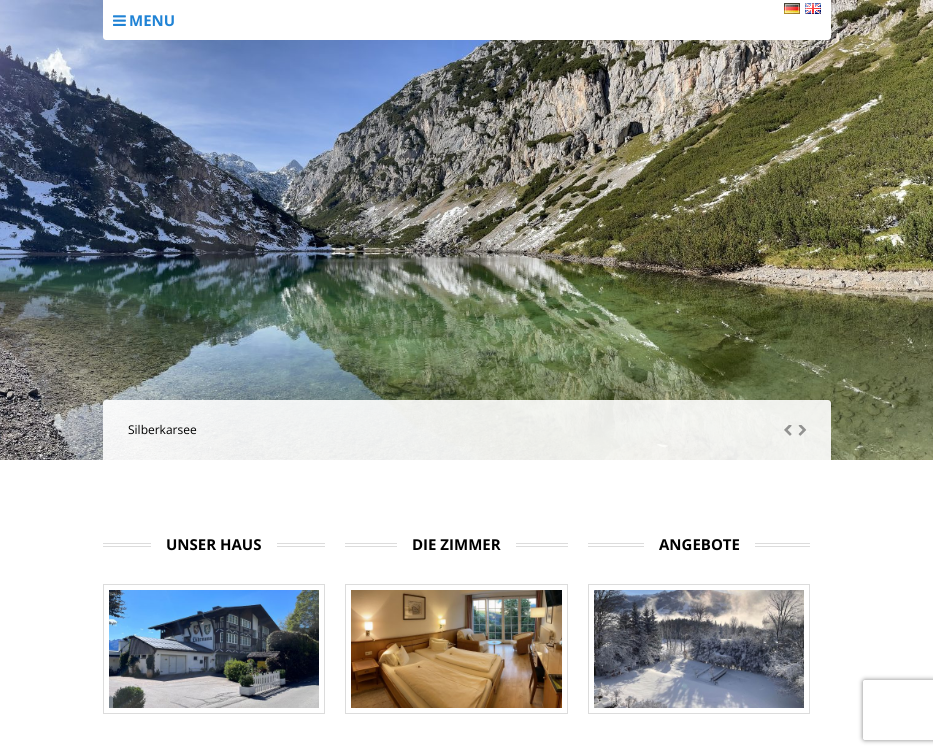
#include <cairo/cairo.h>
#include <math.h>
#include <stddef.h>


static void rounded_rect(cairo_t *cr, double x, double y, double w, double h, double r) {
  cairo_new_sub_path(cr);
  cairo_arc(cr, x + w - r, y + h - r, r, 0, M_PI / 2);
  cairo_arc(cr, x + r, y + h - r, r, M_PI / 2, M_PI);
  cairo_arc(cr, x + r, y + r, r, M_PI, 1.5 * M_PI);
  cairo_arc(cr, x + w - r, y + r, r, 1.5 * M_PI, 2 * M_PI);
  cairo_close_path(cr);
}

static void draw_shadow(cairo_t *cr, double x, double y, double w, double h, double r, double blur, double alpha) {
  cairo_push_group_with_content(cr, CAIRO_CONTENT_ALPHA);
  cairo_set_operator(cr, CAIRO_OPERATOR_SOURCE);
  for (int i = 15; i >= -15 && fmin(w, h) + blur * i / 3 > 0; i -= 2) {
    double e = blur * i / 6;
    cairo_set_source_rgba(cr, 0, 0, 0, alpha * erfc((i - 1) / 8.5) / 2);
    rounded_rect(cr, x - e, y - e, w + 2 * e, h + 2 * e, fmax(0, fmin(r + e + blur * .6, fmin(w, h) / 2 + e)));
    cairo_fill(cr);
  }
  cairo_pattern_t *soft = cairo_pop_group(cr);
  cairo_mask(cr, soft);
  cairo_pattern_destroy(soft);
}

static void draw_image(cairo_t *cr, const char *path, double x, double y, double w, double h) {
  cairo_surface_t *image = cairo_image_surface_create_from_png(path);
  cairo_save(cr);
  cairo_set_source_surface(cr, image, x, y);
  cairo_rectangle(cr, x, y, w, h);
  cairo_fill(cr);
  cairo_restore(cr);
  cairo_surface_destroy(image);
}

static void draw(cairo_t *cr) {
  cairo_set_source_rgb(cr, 1, 1, 1);
  cairo_paint(cr);
  draw_image(cr, "images/4.png", 0, 0, 933, 460);
  cairo_set_source_rgb(cr, 1, 1, 1);
  cairo_new_path(cr);
  cairo_move_to(cr, 103, 0);
  cairo_line_to(cr, 831, 0);
  cairo_line_to(cr, 831, 37);
  cairo_curve_to(cr, 831, 38.5, 829.5, 40, 828, 40);
  cairo_line_to(cr, 106, 40);
  cairo_curve_to(cr, 104.5, 40, 103, 38.5, 103, 37);
  cairo_close_path(cr);
  cairo_fill(cr);
  draw_image(cr, "images/1.png", 784, 3, 16, 11);
  draw_image(cr, "images/2.png", 805, 3, 16, 11);
  draw_image(cr, "images/3.png", 113, 15, 13, 11);
  cairo_set_source_rgba(cr, 1, 1, 1, 0.9);
  cairo_new_path(cr);
  cairo_move_to(cr, 106, 400);
  cairo_line_to(cr, 828, 400);
  cairo_curve_to(cr, 829.5, 400, 831, 401.5, 831, 403);
  cairo_line_to(cr, 831, 460);
  cairo_line_to(cr, 103, 460);
  cairo_line_to(cr, 103, 403);
  cairo_curve_to(cr, 103, 401.5, 104.5, 400, 106, 400);
  cairo_close_path(cr);
  cairo_fill(cr);
  draw_image(cr, "images/5.png", 784, 425, 8, 11);
  draw_image(cr, "images/6.png", 798, 425, 9, 11);
  cairo_set_source_rgb(cr, 220 / 255.0, 220 / 255.0, 220 / 255.0);
  cairo_rectangle(cr, 103, 543, 48, 1);
  cairo_fill(cr);
  cairo_rectangle(cr, 103, 546, 48, 1);
  cairo_fill(cr);
  cairo_rectangle(cr, 277, 543, 48, 1);
  cairo_fill(cr);
  cairo_rectangle(cr, 277, 546, 48, 1);
  cairo_fill(cr);
  cairo_rectangle(cr, 103.5, 584.5, 221, 129);
  cairo_set_line_width(cr, 1);
  cairo_stroke(cr);
  draw_image(cr, "images/7.png", 109, 590, 210, 118);
  cairo_rectangle(cr, 345, 543, 52, 1);
  cairo_fill(cr);
  cairo_rectangle(cr, 345, 546, 52, 1);
  cairo_fill(cr);
  cairo_rectangle(cr, 516, 543, 52, 1);
  cairo_fill(cr);
  cairo_rectangle(cr, 516, 546, 52, 1);
  cairo_fill(cr);
  cairo_rectangle(cr, 345.5, 584.5, 222, 129);
  cairo_stroke(cr);
  draw_image(cr, "images/8.png", 351, 590, 211, 118);
  cairo_rectangle(cr, 588, 543, 56, 1);
  cairo_fill(cr);
  cairo_rectangle(cr, 588, 546, 56, 1);
  cairo_fill(cr);
  cairo_rectangle(cr, 755, 543, 55, 1);
  cairo_fill(cr);
  cairo_rectangle(cr, 755, 546, 55, 1);
  cairo_fill(cr);
  cairo_rectangle(cr, 588.5, 584.5, 221, 129);
  cairo_stroke(cr);
  draw_image(cr, "images/9.png", 594, 590, 210, 118);
  cairo_save(cr);
  cairo_set_fill_rule(cr, CAIRO_FILL_RULE_EVEN_ODD);
  cairo_new_path(cr);
  cairo_move_to(cr, 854, 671);
  cairo_line_to(cr, 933, 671);
  cairo_line_to(cr, 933, 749);
  cairo_line_to(cr, 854, 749);
  cairo_close_path(cr);
  cairo_move_to(cr, 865, 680);
  cairo_line_to(cr, 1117, 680);
  cairo_curve_to(cr, 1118, 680, 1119, 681, 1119, 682);
  cairo_line_to(cr, 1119, 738);
  cairo_curve_to(cr, 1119, 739, 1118, 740, 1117, 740);
  cairo_line_to(cr, 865, 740);
  cairo_curve_to(cr, 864, 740, 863, 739, 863, 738);
  cairo_line_to(cr, 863, 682);
  cairo_curve_to(cr, 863, 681, 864, 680, 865, 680);
  cairo_close_path(cr);
  cairo_clip(cr);
  cairo_set_source_rgb(cr, 128 / 255.0, 128 / 255.0, 128 / 255.0);
  draw_shadow(cr, 863, 680, 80, 60, 2, 2.5, 1);
  cairo_restore(cr);
  cairo_select_font_face(cr, "Open Sans", CAIRO_FONT_SLANT_NORMAL, CAIRO_FONT_WEIGHT_BOLD);
  cairo_set_font_size(cr, 15);
  cairo_set_source_rgb(cr, 32 / 255.0, 131 / 255.0, 213 / 255.0);
  cairo_move_to(cr, 129, 26);
  cairo_show_text(cr, "MENU");
  cairo_select_font_face(cr, "Open Sans", CAIRO_FONT_SLANT_NORMAL, CAIRO_FONT_WEIGHT_NORMAL);
  cairo_set_font_size(cr, 12);
  cairo_set_source_rgb(cr, 0, 0, 0);
  cairo_move_to(cr, 128, 434);
  cairo_show_text(cr, "Silberkarsee");
  cairo_select_font_face(cr, "Open Sans", CAIRO_FONT_SLANT_NORMAL, CAIRO_FONT_WEIGHT_BOLD);
  cairo_set_font_size(cr, 15);
  cairo_move_to(cr, 166, 550);
  cairo_show_text(cr, "UNSER HAUS");
  cairo_move_to(cr, 412, 550);
  cairo_show_text(cr, "DIE ZIMMER");
  cairo_move_to(cr, 659, 550);
  cairo_show_text(cr, "ANGEBOTE");
}

int main(void) {
  cairo_surface_t *surface = cairo_image_surface_create(CAIRO_FORMAT_RGB24, 933, 754);
  cairo_t *cr = cairo_create(surface);
  cairo_font_options_t *options = cairo_font_options_create();
  cairo_font_options_set_hint_metrics(options, CAIRO_HINT_METRICS_OFF);
  cairo_font_options_set_hint_style(options, CAIRO_HINT_STYLE_NONE);
  cairo_set_font_options(cr, options);
  cairo_set_miter_limit(cr, 4);
  draw(cr);
  cairo_surface_write_to_png(surface, "out.png");
  cairo_font_options_destroy(options);
  cairo_destroy(cr);
  cairo_surface_destroy(surface);
  return 0;
}
